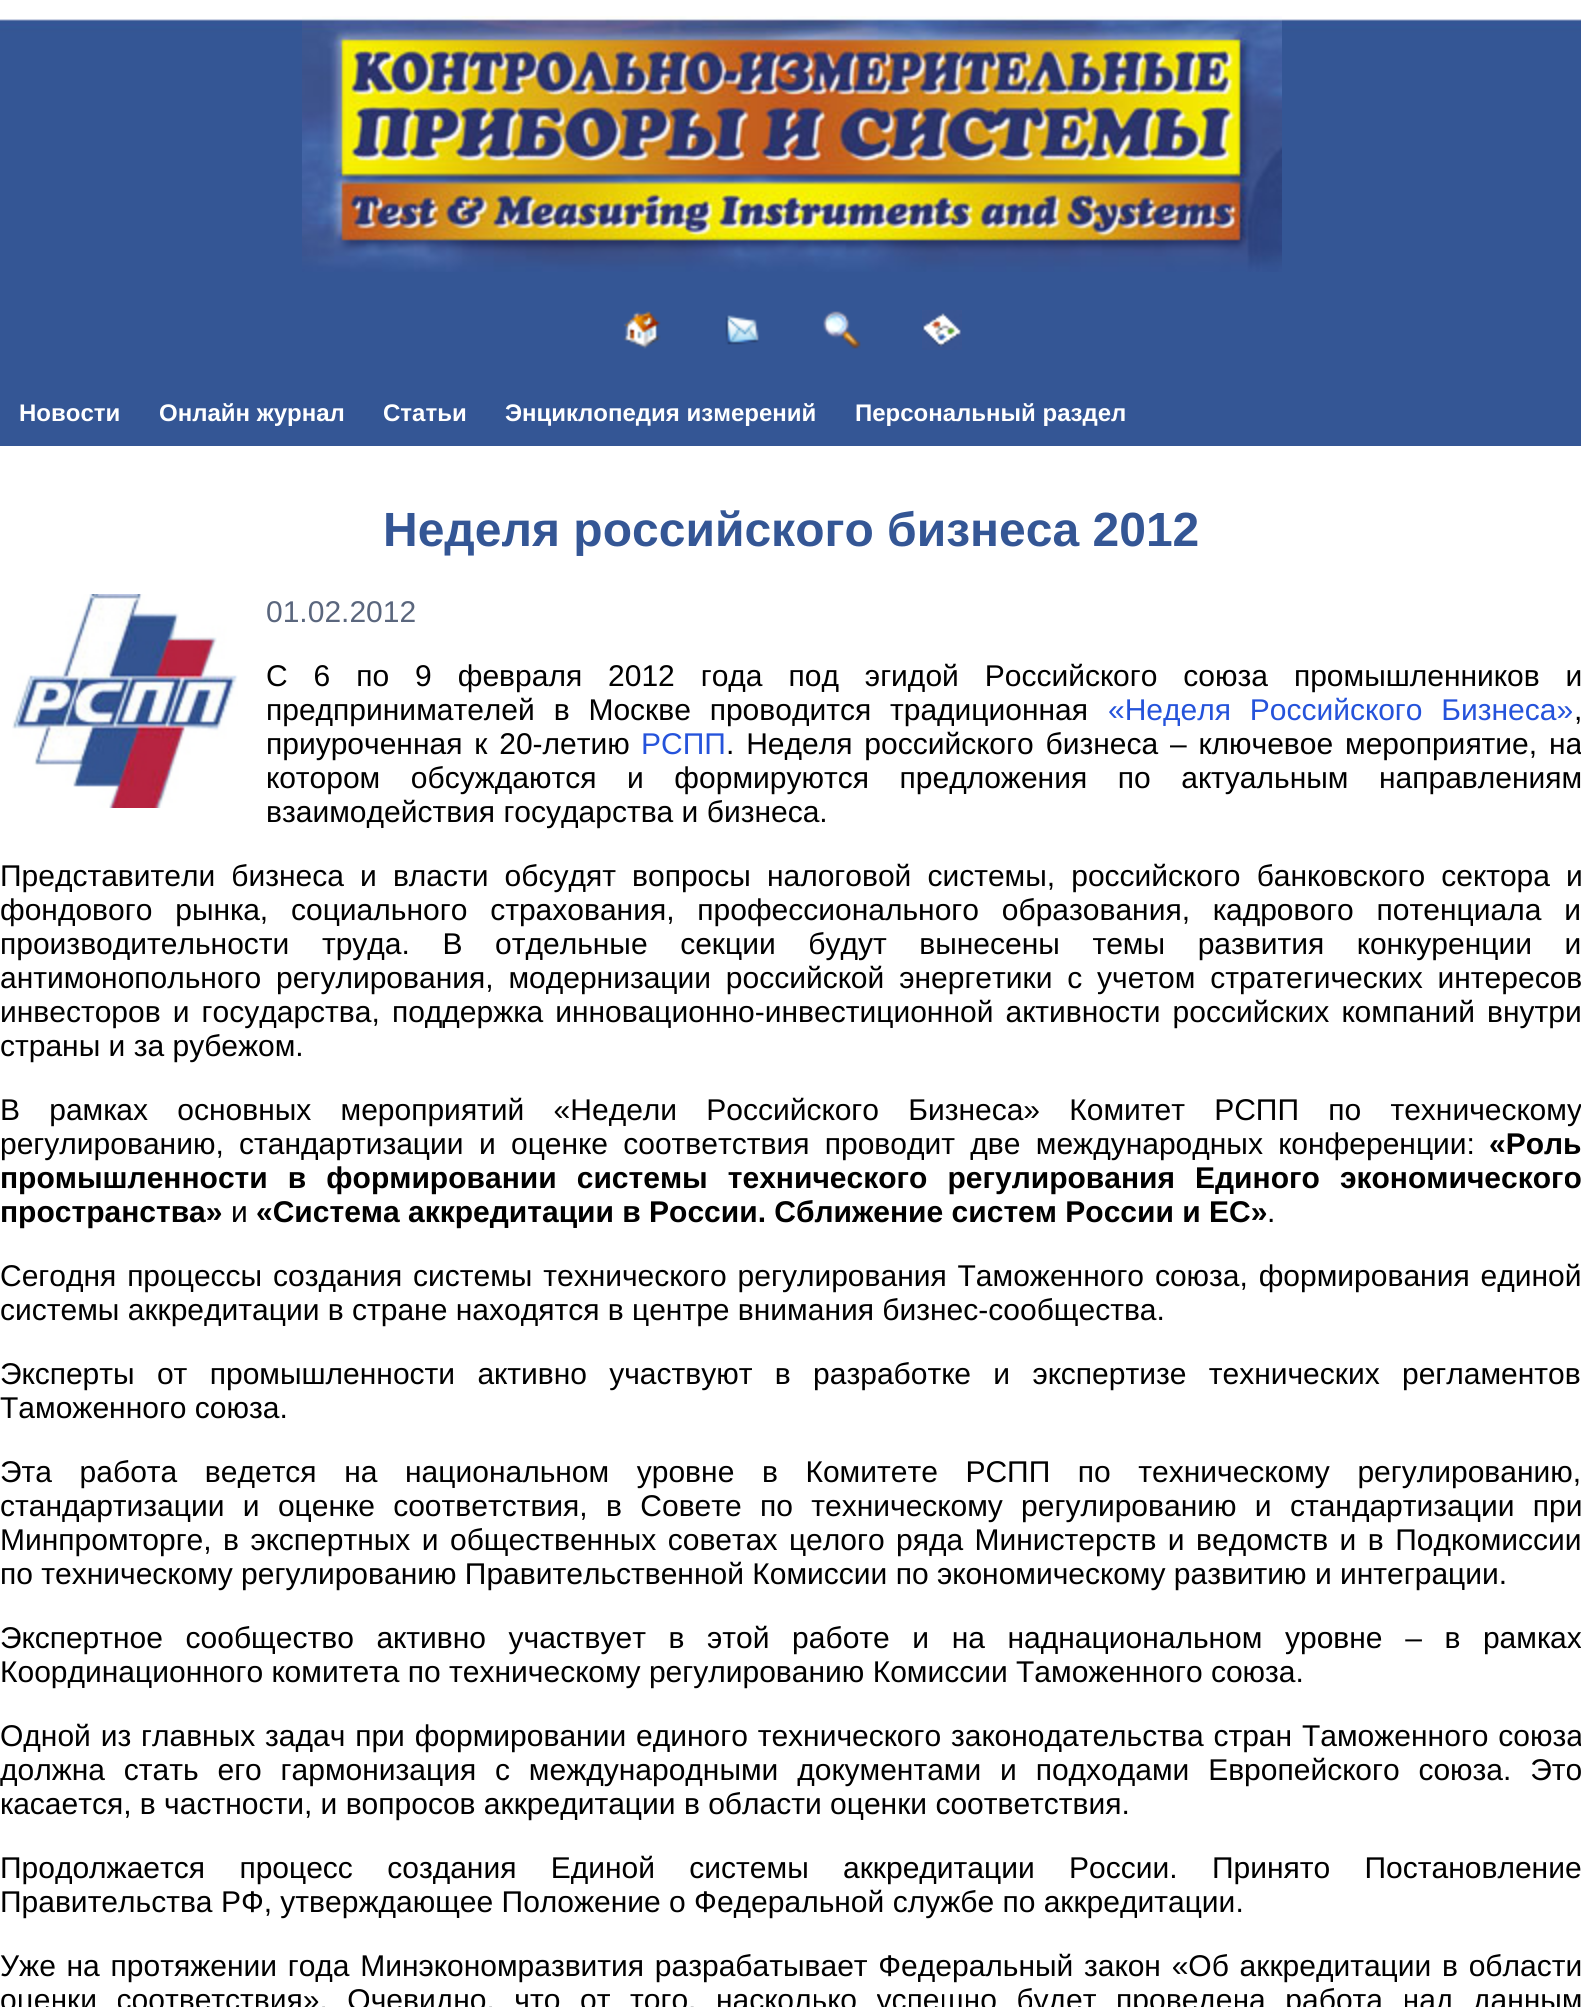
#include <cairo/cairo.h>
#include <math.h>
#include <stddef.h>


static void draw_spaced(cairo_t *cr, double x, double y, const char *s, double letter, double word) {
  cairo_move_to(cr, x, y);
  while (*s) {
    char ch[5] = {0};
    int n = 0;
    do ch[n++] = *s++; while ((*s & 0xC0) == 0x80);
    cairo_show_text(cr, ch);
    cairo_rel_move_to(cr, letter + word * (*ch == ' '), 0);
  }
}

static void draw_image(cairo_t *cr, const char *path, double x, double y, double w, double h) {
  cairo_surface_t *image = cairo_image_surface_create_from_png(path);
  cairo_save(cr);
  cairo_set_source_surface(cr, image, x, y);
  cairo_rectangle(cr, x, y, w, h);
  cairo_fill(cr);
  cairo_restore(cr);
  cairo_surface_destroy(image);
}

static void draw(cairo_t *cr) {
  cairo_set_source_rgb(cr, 1, 1, 1);
  cairo_paint(cr);
  draw_image(cr, "images/1.png", 0, 19, 1581, 261);
  draw_image(cr, "images/2.png", 302, 16, 980, 256);
  cairo_set_source_rgb(cr, 52 / 255.0, 86 / 255.0, 149 / 255.0);
  cairo_rectangle(cr, 0, 280, 1581, 166);
  cairo_fill(cr);
  draw_image(cr, "images/3.png", 623, 311, 38, 38);
  draw_image(cr, "images/4.png", 725, 315, 34, 30);
  draw_image(cr, "images/5.png", 823, 311, 38, 38);
  draw_image(cr, "images/6.png", 922, 310, 40, 40);
  draw_image(cr, "images/7.png", 12, 594, 226, 214);
  cairo_select_font_face(cr, "Liberation Sans", CAIRO_FONT_SLANT_NORMAL, CAIRO_FONT_WEIGHT_BOLD);
  cairo_set_font_size(cr, 24);
  cairo_set_source_rgb(cr, 1, 1, 1);
  cairo_move_to(cr, 19, 421);
  cairo_show_text(cr, "Новости");
  cairo_move_to(cr, 159, 421);
  cairo_show_text(cr, "Онлайн журнал");
  cairo_move_to(cr, 383, 421);
  cairo_show_text(cr, "Статьи");
  cairo_move_to(cr, 505, 421);
  cairo_show_text(cr, "Энциклопедия измерений");
  cairo_move_to(cr, 855, 421);
  cairo_show_text(cr, "Персональный раздел");
  cairo_set_font_size(cr, 48);
  cairo_set_source_rgb(cr, 52 / 255.0, 86 / 255.0, 149 / 255.0);
  cairo_move_to(cr, 383, 546);
  cairo_show_text(cr, "Неделя российского бизнеса 2012");
  cairo_select_font_face(cr, "Liberation Sans", CAIRO_FONT_SLANT_NORMAL, CAIRO_FONT_WEIGHT_NORMAL);
  cairo_set_font_size(cr, 30);
  cairo_set_source_rgb(cr, 90 / 255.0, 102 / 255.0, 125 / 255.0);
  cairo_move_to(cr, 266, 622);
  cairo_show_text(cr, "01.02.2012");
  cairo_set_source_rgb(cr, 0, 0, 0);
  draw_spaced(cr, 266, 686, "С 6 по 9 февраля 2012 года под эгидой Российского союза промышленников и", 0, 17.6);
  draw_spaced(cr, 266, 720, "предпринимателей в Москве проводится традиционная", 0, 10.5);
  cairo_set_source_rgb(cr, 37 / 255.0, 83 / 255.0, 219 / 255.0);
  draw_spaced(cr, 1108, 720, "«Неделя Российского Бизнеса»", 0, 10.5);
  cairo_set_source_rgb(cr, 0, 0, 0);
  cairo_move_to(cr, 1574, 720);
  cairo_show_text(cr, ",");
  draw_spaced(cr, 266, 754, "приуроченная к 20-летию", 0, 3.5);
  cairo_set_source_rgb(cr, 37 / 255.0, 83 / 255.0, 219 / 255.0);
  cairo_move_to(cr, 641, 754);
  cairo_show_text(cr, "РСПП");
  cairo_set_source_rgb(cr, 0, 0, 0);
  draw_spaced(cr, 726, 754, ". Неделя российского бизнеса – ключевое мероприятие, на", 0, 3.5);
  draw_spaced(cr, 266, 788, "котором обсуждаются и формируются предложения по актуальным направлениям", 0, 22.25);
  cairo_move_to(cr, 266, 822);
  cairo_show_text(cr, "взаимодействия государства и бизнеса.");
  draw_spaced(cr, 0, 886, "Представители бизнеса и власти обсудят вопросы налоговой системы, российского банковского сектора и", 0, 7.75);
  draw_spaced(cr, 0, 920, "фондового рынка, социального страхования, профессионального образования, кадрового потенциала и", 0, 14.5);
  draw_spaced(cr, 0, 954, "производительности труда. В отдельные секции будут вынесены темы развития конкуренции и", 0, 24.25);
  draw_spaced(cr, 0, 988, "антимонопольного регулирования, модернизации российской энергетики с учетом стратегических интересов", 0, 6.5);
  draw_spaced(cr, 0, 1022, "инвесторов и государства, поддержка инновационно-инвестиционной активности российских компаний внутри", 0, 3.75);
  cairo_move_to(cr, 0, 1056);
  cairo_show_text(cr, "страны и за рубежом.");
  draw_spaced(cr, 0, 1120, "В рамках основных мероприятий «Недели Российского Бизнеса» Комитет РСПП по техническому", 0, 20.9);
  draw_spaced(cr, 0, 1154, "регулированию, стандартизации и оценке соответствия проводит две международных конференции:", 0, 7);
  cairo_select_font_face(cr, "Liberation Sans", CAIRO_FONT_SLANT_NORMAL, CAIRO_FONT_WEIGHT_BOLD);
  cairo_move_to(cr, 1489, 1154);
  cairo_show_text(cr, "«Роль");
  draw_spaced(cr, 0, 1188, "промышленности в формировании системы технического регулирования Единого экономического", 0, 11.75);
  cairo_move_to(cr, 0, 1222);
  cairo_show_text(cr, "пространства»");
  cairo_select_font_face(cr, "Liberation Sans", CAIRO_FONT_SLANT_NORMAL, CAIRO_FONT_WEIGHT_NORMAL);
  cairo_move_to(cr, 231, 1222);
  cairo_show_text(cr, "и");
  cairo_select_font_face(cr, "Liberation Sans", CAIRO_FONT_SLANT_NORMAL, CAIRO_FONT_WEIGHT_BOLD);
  cairo_move_to(cr, 256, 1222);
  cairo_show_text(cr, "«Система аккредитации в России. Сближение систем России и ЕС»");
  cairo_select_font_face(cr, "Liberation Sans", CAIRO_FONT_SLANT_NORMAL, CAIRO_FONT_WEIGHT_NORMAL);
  cairo_move_to(cr, 1267, 1222);
  cairo_show_text(cr, ".");
  draw_spaced(cr, 0, 1286, "Сегодня процессы создания системы технического регулирования Таможенного союза, формирования единой", 0, 2.5);
  cairo_move_to(cr, 0, 1320);
  cairo_show_text(cr, "системы аккредитации в стране находятся в центре внимания бизнес-сообщества.");
  draw_spaced(cr, 0, 1384, "Эксперты от промышленности активно участвуют в разработке и экспертизе технических регламентов", 0, 14);
  cairo_move_to(cr, 0, 1418);
  cairo_show_text(cr, "Таможенного союза.");
  draw_spaced(cr, 0, 1482, "Эта работа ведется на национальном уровне в Комитете РСПП по техническому регулированию,", 0, 19.25);
  draw_spaced(cr, 0, 1516, "стандартизации и оценке соответствия, в Совете по техническому регулированию и стандартизации при", 0, 10);
  draw_spaced(cr, 0, 1550, "Минпромторге, в экспертных и общественных советах целого ряда Министерств и ведомств и в Подкомиссии", 0, 3.1);
  cairo_move_to(cr, 0, 1584);
  cairo_show_text(cr, "по техническому регулированию Правительственной Комиссии по экономическому развитию и интеграции.");
  draw_spaced(cr, 0, 1648, "Экспертное сообщество активно участвует в этой работе и на наднациональном уровне – в рамках", 0, 14.25);
  cairo_move_to(cr, 0, 1682);
  cairo_show_text(cr, "Координационного комитета по техническому регулированию Комиссии Таможенного союза.");
  draw_spaced(cr, 0, 1746, "Одной из главных задач при формировании единого технического законодательства стран Таможенного союза", 0, 1.5);
  draw_spaced(cr, 0, 1780, "должна стать его гармонизация с международными документами и подходами Европейского союза. Это", 0, 10.5);
  cairo_move_to(cr, 0, 1814);
  cairo_show_text(cr, "касается, в частности, и вопросов аккредитации в области оценки соответствия.");
  draw_spaced(cr, 0, 1878, "Продолжается процесс создания Единой системы аккредитации России. Принято Постановление", 0, 26);
  cairo_move_to(cr, 0, 1912);
  cairo_show_text(cr, "Правительства РФ, утверждающее Положение о Федеральной службе по аккредитации.");
  draw_spaced(cr, 0, 1976, "Уже на протяжении года Минэкономразвития разрабатывает Федеральный закон «Об аккредитации в области", 0, 2.4);
  draw_spaced(cr, 0, 2010, "оценки соответствия». Очевидно, что от того, насколько успешно будет проведена работа над данным", 0, 11.25);
}

int main(void) {
  cairo_surface_t *surface = cairo_image_surface_create(CAIRO_FORMAT_RGB24, 1581, 2007);
  cairo_t *cr = cairo_create(surface);
  cairo_font_options_t *options = cairo_font_options_create();
  cairo_font_options_set_hint_metrics(options, CAIRO_HINT_METRICS_OFF);
  cairo_font_options_set_hint_style(options, CAIRO_HINT_STYLE_NONE);
  cairo_set_font_options(cr, options);
  cairo_set_miter_limit(cr, 4);
  draw(cr);
  cairo_surface_write_to_png(surface, "out.png");
  cairo_font_options_destroy(options);
  cairo_destroy(cr);
  cairo_surface_destroy(surface);
  return 0;
}
